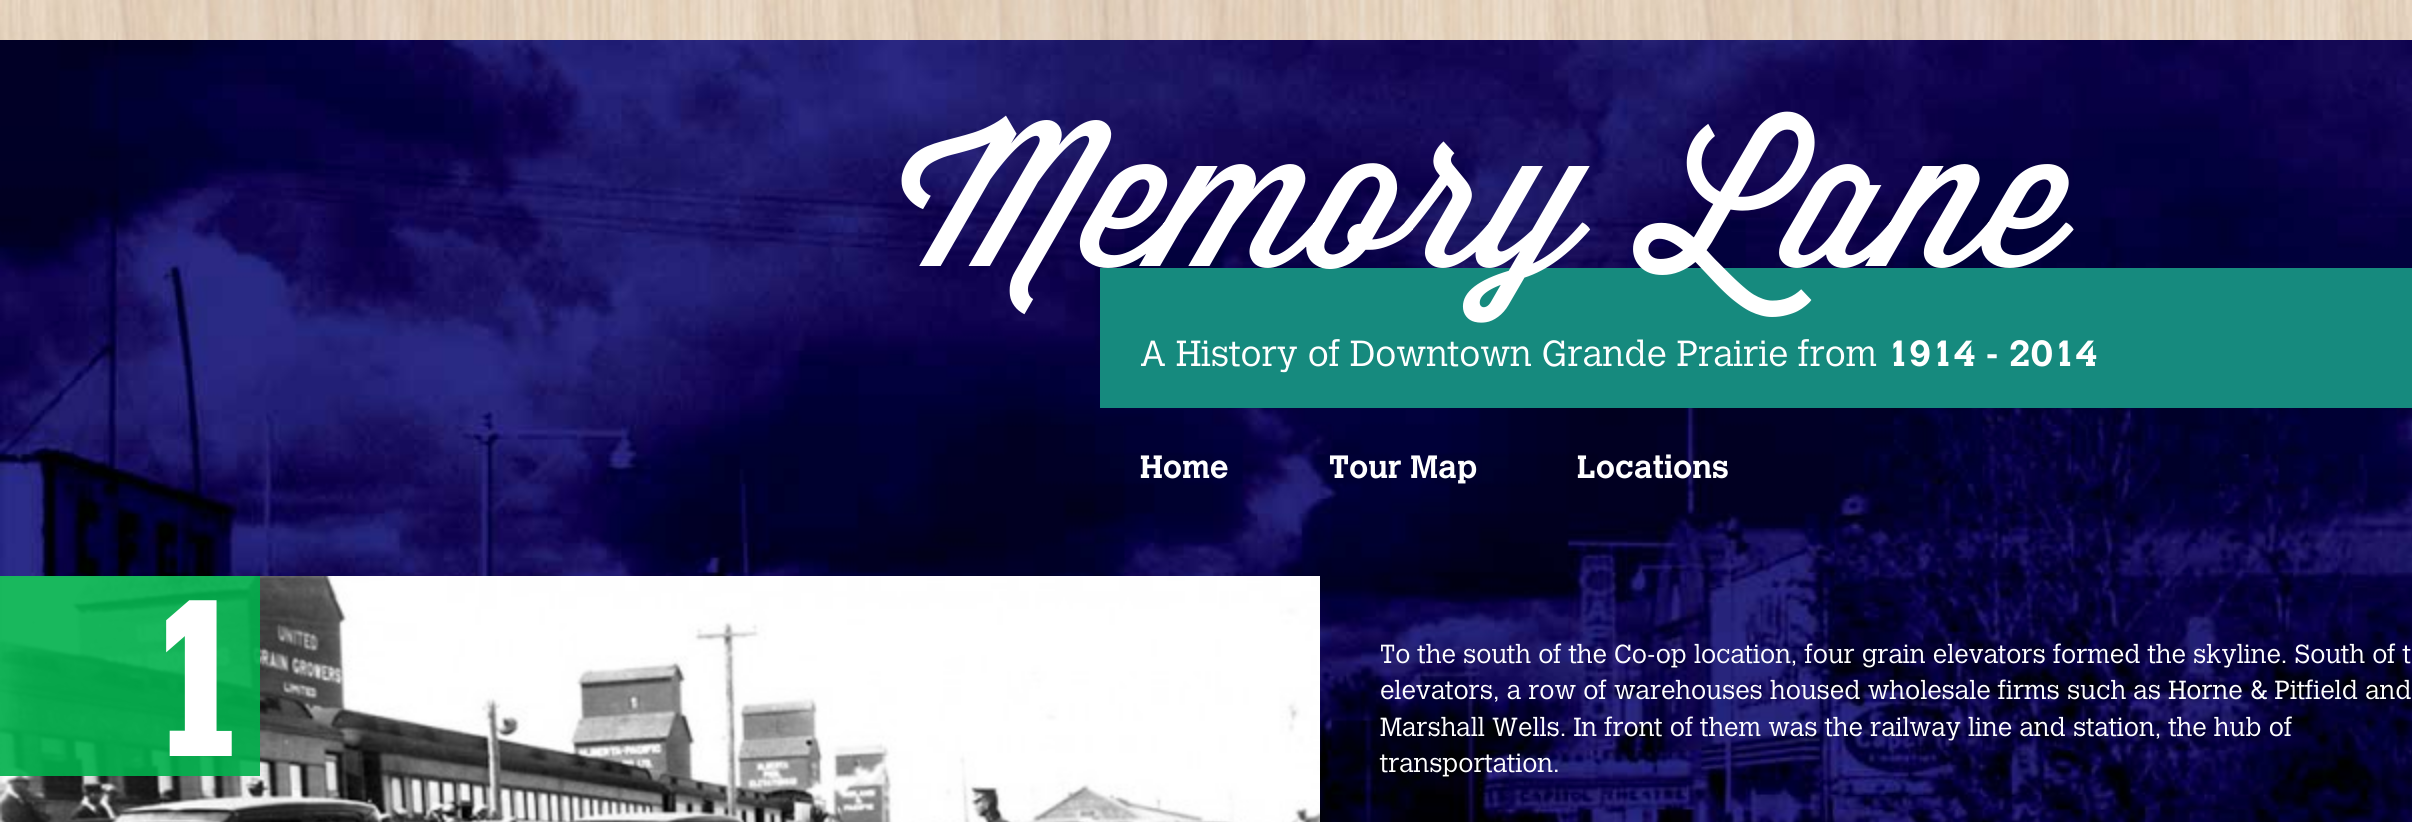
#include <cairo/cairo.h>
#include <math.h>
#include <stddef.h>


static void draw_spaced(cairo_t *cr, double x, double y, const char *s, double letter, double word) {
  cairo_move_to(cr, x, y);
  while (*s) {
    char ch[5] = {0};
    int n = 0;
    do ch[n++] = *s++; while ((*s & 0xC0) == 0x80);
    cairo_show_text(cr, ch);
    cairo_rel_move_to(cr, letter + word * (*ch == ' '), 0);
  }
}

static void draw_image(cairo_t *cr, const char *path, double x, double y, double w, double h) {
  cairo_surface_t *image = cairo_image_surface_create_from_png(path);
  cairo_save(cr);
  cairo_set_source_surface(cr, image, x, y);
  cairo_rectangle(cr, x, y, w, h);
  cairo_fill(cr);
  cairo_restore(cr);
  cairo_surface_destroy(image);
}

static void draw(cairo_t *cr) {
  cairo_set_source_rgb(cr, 1, 1, 1);
  cairo_paint(cr);
  draw_image(cr, "images/1.png", 0, 0, 2412, 40);
  draw_image(cr, "images/2.png", 0, 40, 2412, 782);
  cairo_set_source_rgb(cr, 22 / 255.0, 138 / 255.0, 126 / 255.0);
  cairo_rectangle(cr, 1100, 268, 1312, 140);
  cairo_fill(cr);
  draw_image(cr, "images/3.png", 0, 576, 1320, 246);
  cairo_set_source_rgba(cr, 0, 177 / 255.0, 76 / 255.0, 0.9);
  cairo_rectangle(cr, 0, 576, 260, 200);
  cairo_fill(cr);
  cairo_select_font_face(cr, "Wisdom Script", CAIRO_FONT_SLANT_NORMAL, CAIRO_FONT_WEIGHT_NORMAL);
  cairo_set_font_size(cr, 200);
  cairo_set_source_rgb(cr, 1, 1, 1);
  cairo_move_to(cr, 900, 266);
  cairo_show_text(cr, "Memory Lane");
  cairo_select_font_face(cr, "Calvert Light", CAIRO_FONT_SLANT_NORMAL, CAIRO_FONT_WEIGHT_NORMAL);
  cairo_set_font_size(cr, 36);
  cairo_move_to(cr, 1140, 366);
  cairo_show_text(cr, "A History of Downtown Grande Prairie from");
  cairo_select_font_face(cr, "Calvert", CAIRO_FONT_SLANT_NORMAL, CAIRO_FONT_WEIGHT_BOLD);
  cairo_move_to(cr, 1887, 366);
  cairo_show_text(cr, "1914 - 2014");
  cairo_set_font_size(cr, 32);
  cairo_move_to(cr, 1140, 478);
  cairo_show_text(cr, "Home");
  cairo_move_to(cr, 1329, 478);
  cairo_show_text(cr, "Tour Map");
  cairo_move_to(cr, 1577, 478);
  cairo_show_text(cr, "Locations");
  cairo_set_font_size(cr, 220);
  draw_spaced(cr, 127, 756, "1", -16, 0);
  cairo_select_font_face(cr, "Calvert Light", CAIRO_FONT_SLANT_NORMAL, CAIRO_FONT_WEIGHT_NORMAL);
  cairo_set_font_size(cr, 26);
  cairo_move_to(cr, 1380, 663);
  cairo_show_text(cr, "To the south of the Co-op location, four grain elevators formed the skyline. South of t");
  cairo_move_to(cr, 1380, 699);
  cairo_show_text(cr, "elevators, a row of warehouses housed wholesale firms such as Horne & Pitfield and");
  cairo_move_to(cr, 1380, 736);
  cairo_show_text(cr, "Marshall Wells. In front of them was the railway line and station, the hub of");
  cairo_move_to(cr, 1380, 772);
  cairo_show_text(cr, "transportation.");
}

int main(void) {
  cairo_surface_t *surface = cairo_image_surface_create(CAIRO_FORMAT_RGB24, 2412, 822);
  cairo_t *cr = cairo_create(surface);
  cairo_font_options_t *options = cairo_font_options_create();
  cairo_font_options_set_hint_metrics(options, CAIRO_HINT_METRICS_OFF);
  cairo_font_options_set_hint_style(options, CAIRO_HINT_STYLE_NONE);
  cairo_set_font_options(cr, options);
  cairo_set_miter_limit(cr, 4);
  draw(cr);
  cairo_surface_write_to_png(surface, "out.png");
  cairo_font_options_destroy(options);
  cairo_destroy(cr);
  cairo_surface_destroy(surface);
  return 0;
}
